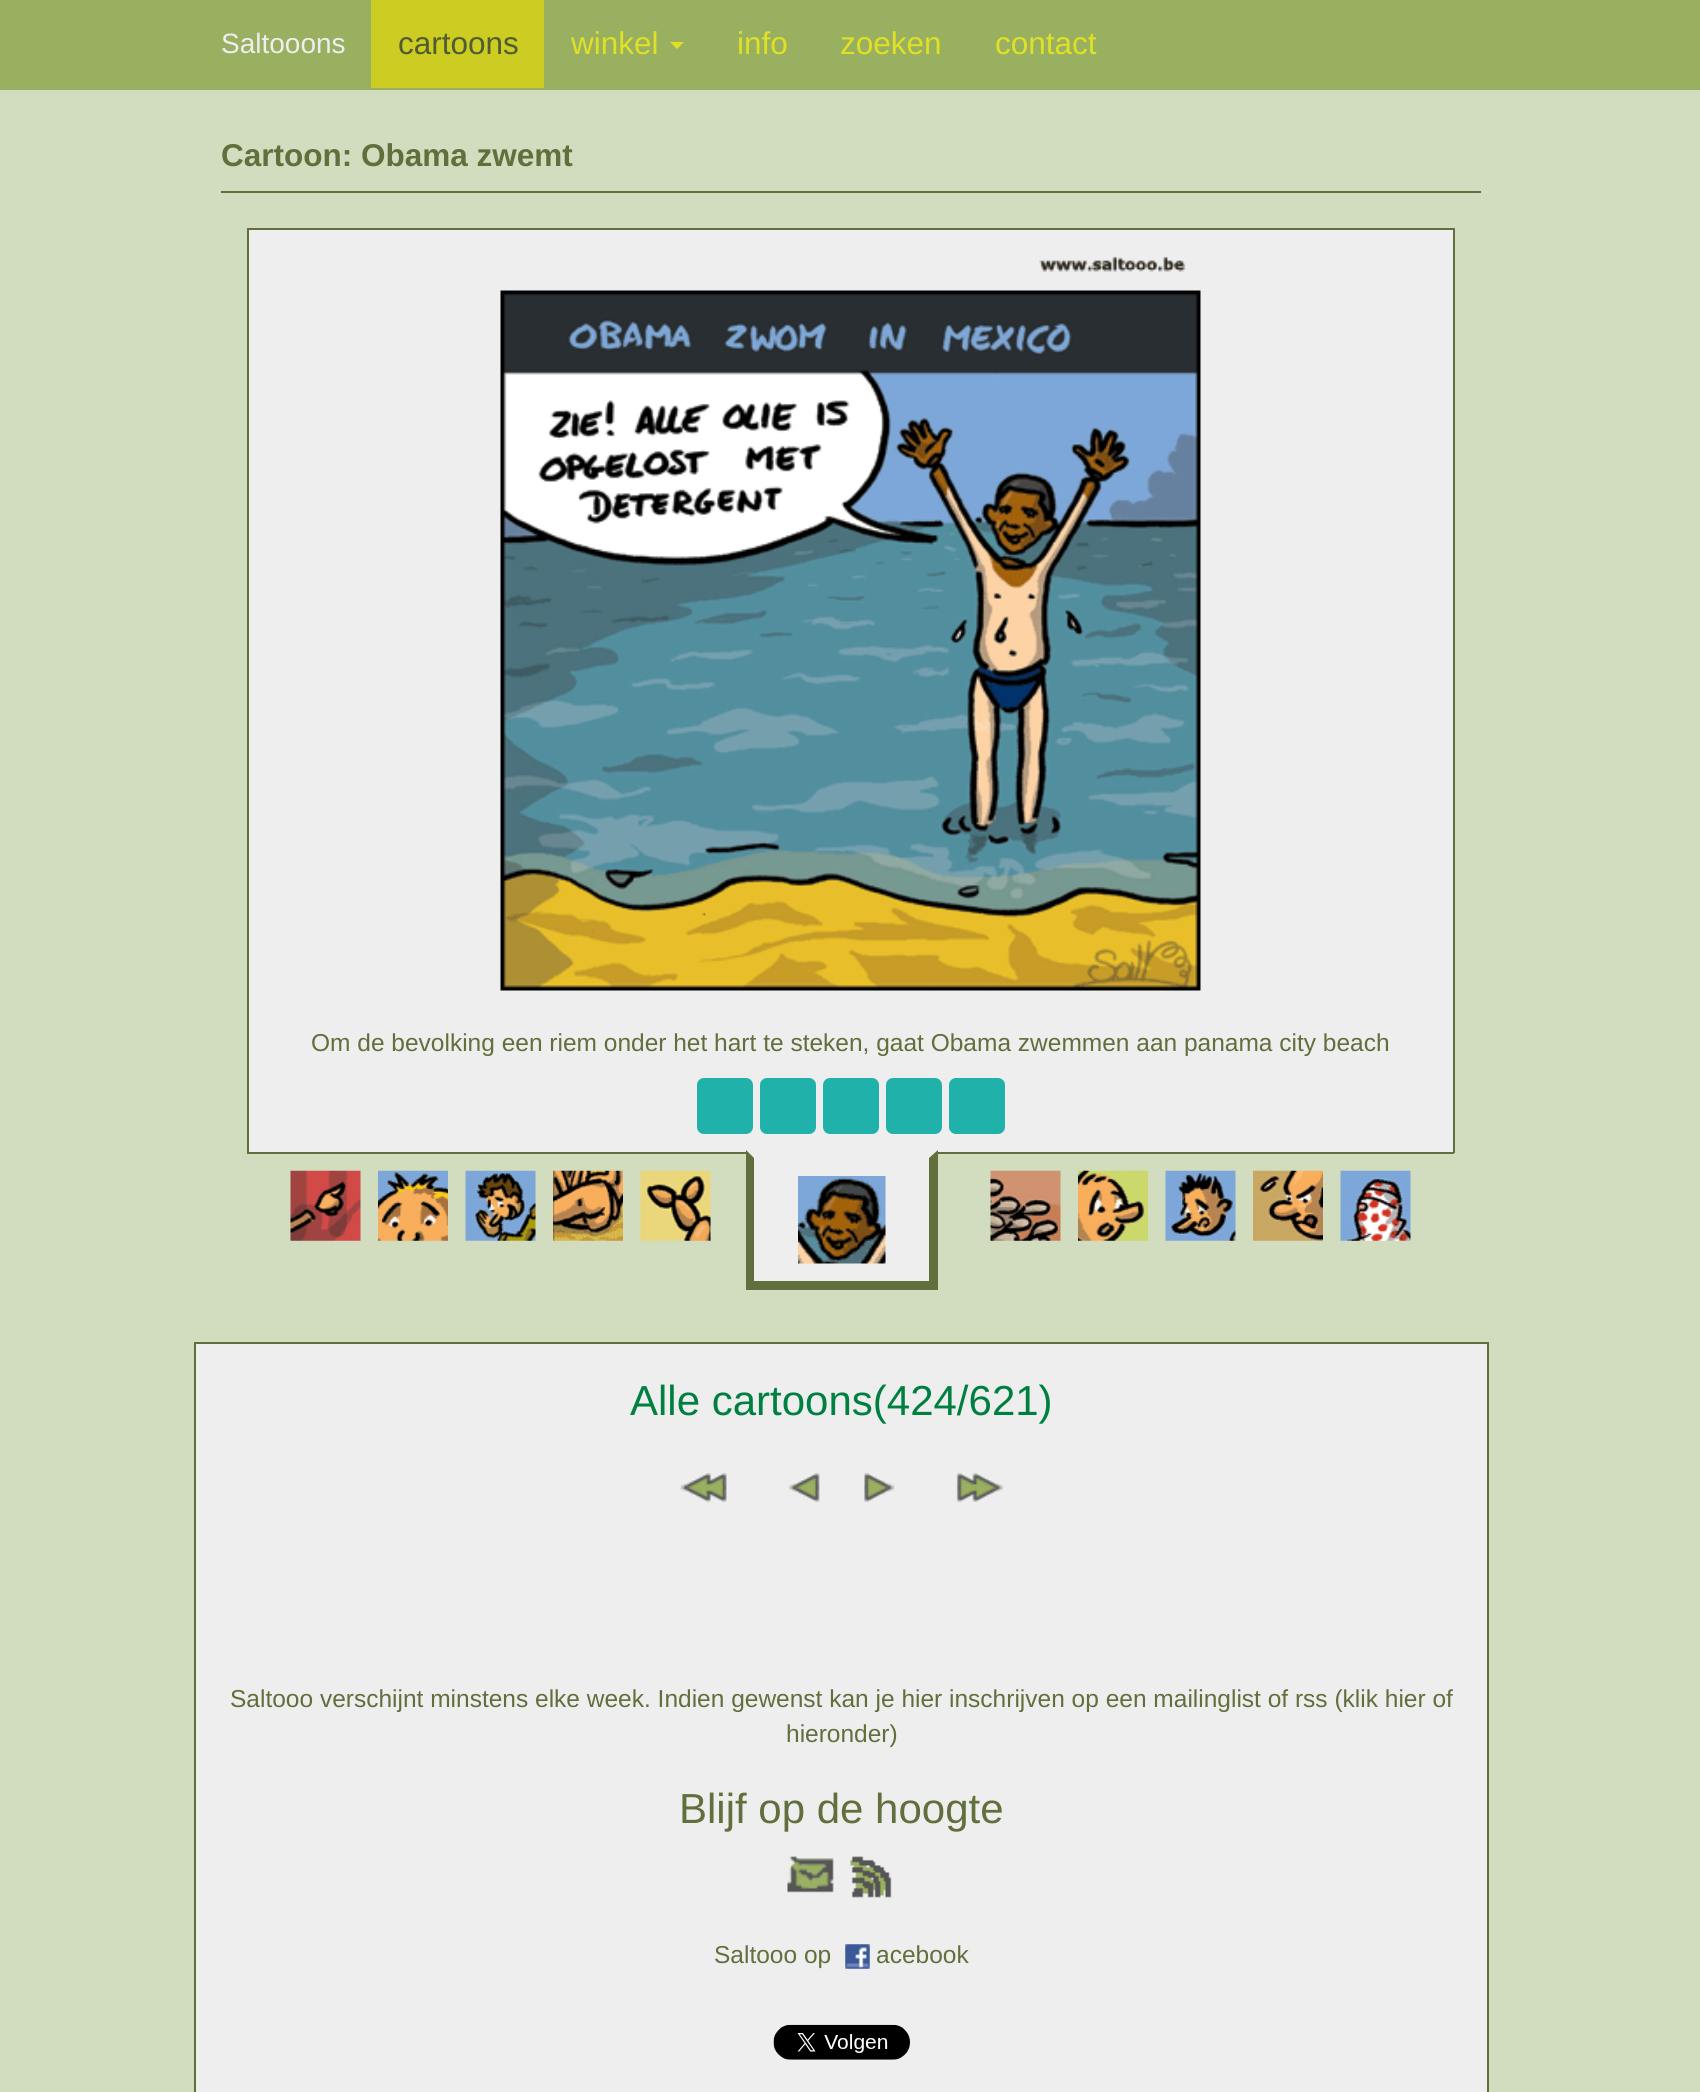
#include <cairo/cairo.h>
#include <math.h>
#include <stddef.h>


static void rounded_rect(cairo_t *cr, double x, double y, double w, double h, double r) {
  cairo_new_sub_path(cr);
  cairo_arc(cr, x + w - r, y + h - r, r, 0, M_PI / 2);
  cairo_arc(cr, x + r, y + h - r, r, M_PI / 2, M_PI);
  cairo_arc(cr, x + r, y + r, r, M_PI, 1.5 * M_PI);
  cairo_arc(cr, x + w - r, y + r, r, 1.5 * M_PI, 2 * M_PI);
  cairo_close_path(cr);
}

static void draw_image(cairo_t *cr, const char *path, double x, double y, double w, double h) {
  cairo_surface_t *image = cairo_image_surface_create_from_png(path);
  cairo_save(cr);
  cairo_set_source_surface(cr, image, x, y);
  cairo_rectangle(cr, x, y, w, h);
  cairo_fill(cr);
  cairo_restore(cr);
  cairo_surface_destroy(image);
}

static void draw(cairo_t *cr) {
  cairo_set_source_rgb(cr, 210 / 255.0, 220 / 255.0, 190 / 255.0);
  cairo_paint(cr);
  cairo_set_source_rgb(cr, 153 / 255.0, 176 / 255.0, 96 / 255.0);
  cairo_rectangle(cr, 0, 0, 1700, 90);
  cairo_fill(cr);
  cairo_set_source_rgb(cr, 204 / 255.0, 204 / 255.0, 34 / 255.0);
  cairo_rectangle(cr, 371, 0, 173, 88);
  cairo_fill(cr);
  cairo_set_source_rgb(cr, 224 / 255.0, 224 / 255.0, 37 / 255.0);
  cairo_new_path(cr);
  cairo_move_to(cr, 670, 42);
  cairo_line_to(cr, 684, 42);
  cairo_line_to(cr, 677, 49);
  cairo_close_path(cr);
  cairo_fill(cr);
  cairo_set_source_rgb(cr, 96 / 255.0, 111 / 255.0, 60 / 255.0);
  cairo_rectangle(cr, 221, 191, 1260, 2);
  cairo_fill(cr);
  cairo_set_source_rgb(cr, 238 / 255.0, 238 / 255.0, 238 / 255.0);
  cairo_rectangle(cr, 249, 230, 1204, 922);
  cairo_fill(cr);
  cairo_set_source_rgb(cr, 96 / 255.0, 111 / 255.0, 60 / 255.0);
  cairo_rectangle(cr, 247, 228, 1207, 2);
  cairo_fill(cr);
  cairo_rectangle(cr, 1453, 228, 2, 925);
  cairo_fill(cr);
  cairo_rectangle(cr, 247, 228, 2, 763);
  cairo_fill(cr);
  draw_image(cr, "images/1.png", 500, 256, 701, 735);
  cairo_rectangle(cr, 247, 1152, 1207, 2);
  cairo_fill(cr);
  cairo_rectangle(cr, 247, 991, 2, 162);
  cairo_fill(cr);
  cairo_set_source_rgb(cr, 32 / 255.0, 178 / 255.0, 170 / 255.0);
  rounded_rect(cr, 697, 1078, 56, 56, 7);
  cairo_fill(cr);
  rounded_rect(cr, 760, 1078, 56, 56, 7);
  cairo_fill(cr);
  rounded_rect(cr, 823, 1078, 56, 56, 7);
  cairo_fill(cr);
  rounded_rect(cr, 886, 1078, 56, 56, 7);
  cairo_fill(cr);
  rounded_rect(cr, 949, 1078, 56, 56, 7);
  cairo_fill(cr);
  draw_image(cr, "images/2.png", 290, 1170, 71, 71);
  draw_image(cr, "images/3.png", 378, 1170, 70, 71);
  draw_image(cr, "images/4.png", 465, 1170, 71, 71);
  draw_image(cr, "images/5.png", 553, 1170, 70, 71);
  draw_image(cr, "images/6.png", 640, 1170, 71, 71);
  cairo_set_source_rgb(cr, 238 / 255.0, 238 / 255.0, 238 / 255.0);
  cairo_rectangle(cr, 746, 1152, 192, 129);
  cairo_fill(cr);
  cairo_set_source_rgb(cr, 96 / 255.0, 111 / 255.0, 60 / 255.0);
  cairo_new_path(cr);
  cairo_move_to(cr, 938, 1150);
  cairo_line_to(cr, 938, 1290);
  cairo_line_to(cr, 929, 1281);
  cairo_line_to(cr, 929, 1158);
  cairo_close_path(cr);
  cairo_fill(cr);
  cairo_rectangle(cr, 746, 1281, 192, 9);
  cairo_fill(cr);
  cairo_new_path(cr);
  cairo_move_to(cr, 746, 1290);
  cairo_line_to(cr, 746, 1150);
  cairo_line_to(cr, 754, 1158);
  cairo_line_to(cr, 754, 1281);
  cairo_close_path(cr);
  cairo_fill(cr);
  draw_image(cr, "images/7.png", 798, 1176, 88, 88);
  draw_image(cr, "images/8.png", 990, 1170, 71, 71);
  draw_image(cr, "images/9.png", 1078, 1170, 70, 71);
  draw_image(cr, "images/10.png", 1165, 1170, 71, 71);
  draw_image(cr, "images/11.png", 1253, 1170, 70, 71);
  draw_image(cr, "images/12.png", 1340, 1170, 71, 71);
  cairo_set_source_rgb(cr, 238 / 255.0, 238 / 255.0, 238 / 255.0);
  cairo_rectangle(cr, 195, 1343, 1293, 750);
  cairo_fill_preserve(cr);
  cairo_set_source_rgb(cr, 96 / 255.0, 111 / 255.0, 60 / 255.0);
  cairo_stroke(cr);
  draw_image(cr, "images/13.png", 680, 1472, 47, 31);
  draw_image(cr, "images/14.png", 789, 1472, 31, 31);
  draw_image(cr, "images/15.png", 864, 1472, 31, 31);
  draw_image(cr, "images/16.png", 956, 1472, 47, 31);
  draw_image(cr, "images/17.png", 787, 1856, 47, 37);
  draw_image(cr, "images/18.png", 850, 1856, 42, 42);
  draw_image(cr, "images/19.png", 845, 1944, 25, 25);
  draw_image(cr, "images/20.png", 773, 2024, 137, 36);
  cairo_select_font_face(cr, "Liberation Sans", CAIRO_FONT_SLANT_NORMAL, CAIRO_FONT_WEIGHT_NORMAL);
  cairo_set_font_size(cr, 28);
  cairo_set_source_rgb(cr, 238 / 255.0, 238 / 255.0, 238 / 255.0);
  cairo_move_to(cr, 221, 53);
  cairo_show_text(cr, "Saltooons");
  cairo_set_font_size(cr, 31.5);
  cairo_set_source_rgb(cr, 80 / 255.0, 92 / 255.0, 50 / 255.0);
  cairo_move_to(cr, 398, 54);
  cairo_show_text(cr, "cartoons");
  cairo_set_source_rgb(cr, 224 / 255.0, 224 / 255.0, 37 / 255.0);
  cairo_move_to(cr, 571, 54);
  cairo_show_text(cr, "winkel");
  cairo_move_to(cr, 737, 54);
  cairo_show_text(cr, "info");
  cairo_move_to(cr, 840, 54);
  cairo_show_text(cr, "zoeken");
  cairo_move_to(cr, 995, 54);
  cairo_show_text(cr, "contact");
  cairo_select_font_face(cr, "Liberation Sans", CAIRO_FONT_SLANT_NORMAL, CAIRO_FONT_WEIGHT_BOLD);
  cairo_set_source_rgb(cr, 96 / 255.0, 111 / 255.0, 60 / 255.0);
  cairo_move_to(cr, 221, 166);
  cairo_show_text(cr, "Cartoon: Obama zwemt");
  cairo_select_font_face(cr, "Liberation Sans", CAIRO_FONT_SLANT_NORMAL, CAIRO_FONT_WEIGHT_NORMAL);
  cairo_set_font_size(cr, 24.5);
  cairo_move_to(cr, 311, 1051);
  cairo_show_text(cr, "Om de bevolking een riem onder het hart te steken, gaat Obama zwemmen aan panama city beach");
  cairo_set_font_size(cr, 42);
  cairo_set_source_rgb(cr, 0, 128 / 255.0, 64 / 255.0);
  cairo_move_to(cr, 630, 1415);
  cairo_show_text(cr, "Alle cartoons(424/621)");
  cairo_set_font_size(cr, 24.5);
  cairo_set_source_rgb(cr, 96 / 255.0, 111 / 255.0, 60 / 255.0);
  cairo_move_to(cr, 230, 1707);
  cairo_show_text(cr, "Saltooo verschijnt minstens elke week. Indien gewenst kan je hier inschrijven op een mailinglist of rss (klik hier of");
  cairo_move_to(cr, 786, 1742);
  cairo_show_text(cr, "hieronder)");
  cairo_set_font_size(cr, 42);
  cairo_move_to(cr, 679, 1823);
  cairo_show_text(cr, "Blijf op de hoogte");
  cairo_set_font_size(cr, 24.5);
  cairo_move_to(cr, 714, 1963);
  cairo_show_text(cr, "Saltooo op");
  cairo_move_to(cr, 876, 1963);
  cairo_show_text(cr, "acebook");
}

int main(void) {
  cairo_surface_t *surface = cairo_image_surface_create(CAIRO_FORMAT_RGB24, 1700, 2092);
  cairo_t *cr = cairo_create(surface);
  cairo_font_options_t *options = cairo_font_options_create();
  cairo_font_options_set_hint_metrics(options, CAIRO_HINT_METRICS_OFF);
  cairo_font_options_set_hint_style(options, CAIRO_HINT_STYLE_NONE);
  cairo_set_font_options(cr, options);
  cairo_set_miter_limit(cr, 4);
  draw(cr);
  cairo_surface_write_to_png(surface, "out.png");
  cairo_font_options_destroy(options);
  cairo_destroy(cr);
  cairo_surface_destroy(surface);
  return 0;
}
